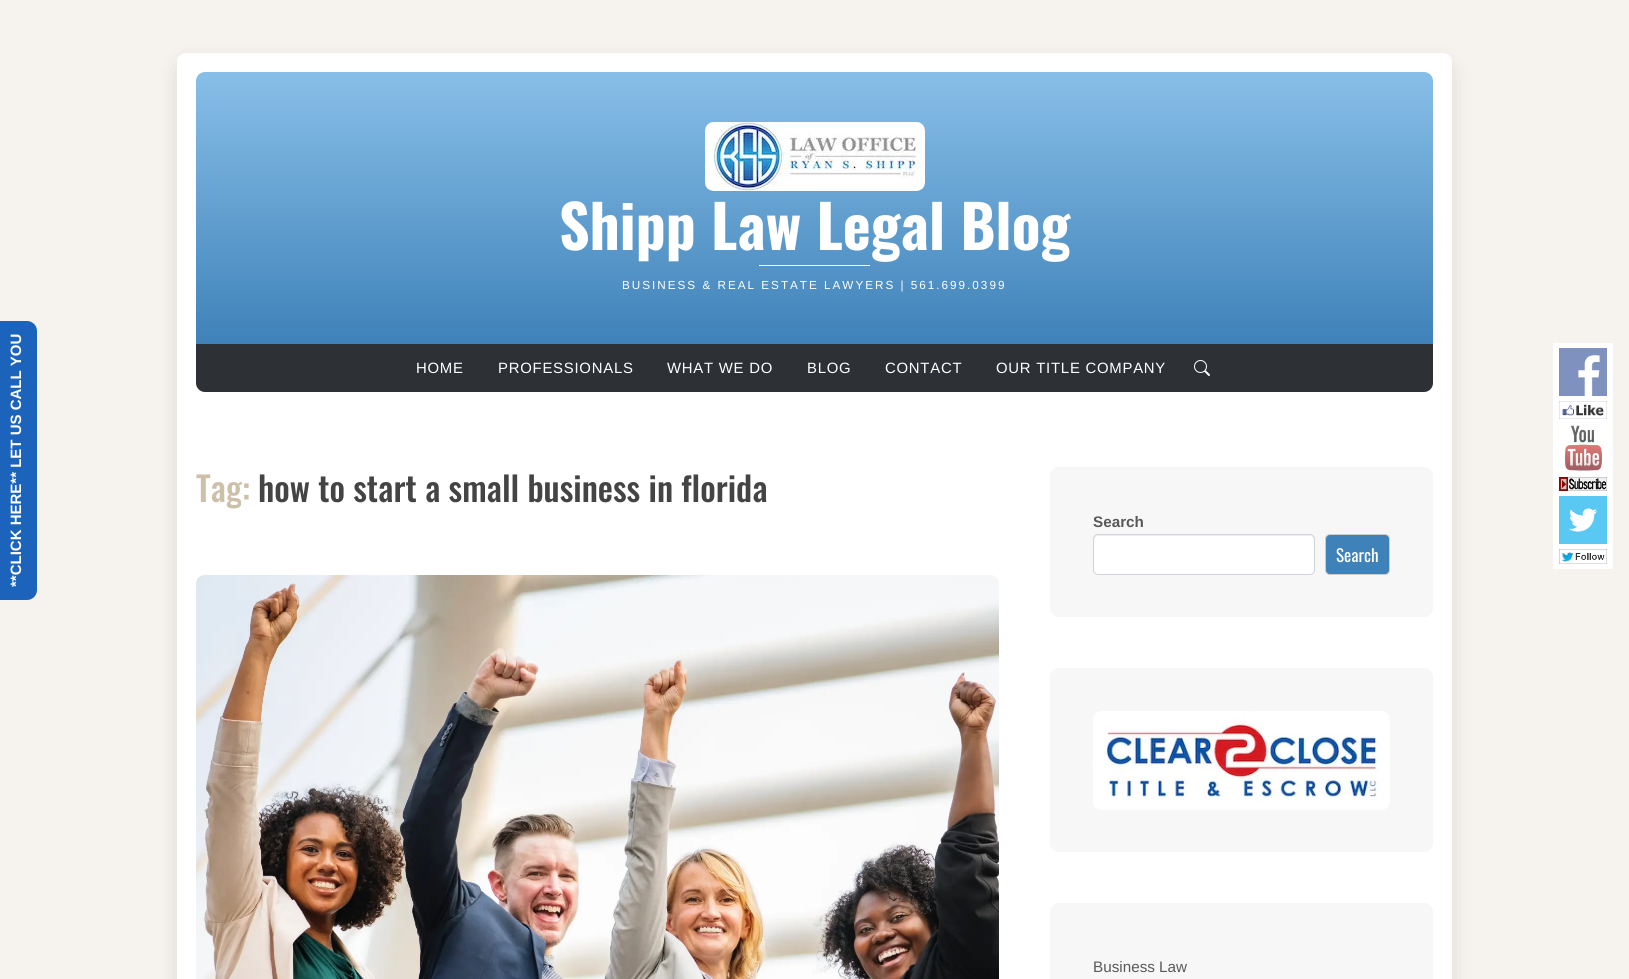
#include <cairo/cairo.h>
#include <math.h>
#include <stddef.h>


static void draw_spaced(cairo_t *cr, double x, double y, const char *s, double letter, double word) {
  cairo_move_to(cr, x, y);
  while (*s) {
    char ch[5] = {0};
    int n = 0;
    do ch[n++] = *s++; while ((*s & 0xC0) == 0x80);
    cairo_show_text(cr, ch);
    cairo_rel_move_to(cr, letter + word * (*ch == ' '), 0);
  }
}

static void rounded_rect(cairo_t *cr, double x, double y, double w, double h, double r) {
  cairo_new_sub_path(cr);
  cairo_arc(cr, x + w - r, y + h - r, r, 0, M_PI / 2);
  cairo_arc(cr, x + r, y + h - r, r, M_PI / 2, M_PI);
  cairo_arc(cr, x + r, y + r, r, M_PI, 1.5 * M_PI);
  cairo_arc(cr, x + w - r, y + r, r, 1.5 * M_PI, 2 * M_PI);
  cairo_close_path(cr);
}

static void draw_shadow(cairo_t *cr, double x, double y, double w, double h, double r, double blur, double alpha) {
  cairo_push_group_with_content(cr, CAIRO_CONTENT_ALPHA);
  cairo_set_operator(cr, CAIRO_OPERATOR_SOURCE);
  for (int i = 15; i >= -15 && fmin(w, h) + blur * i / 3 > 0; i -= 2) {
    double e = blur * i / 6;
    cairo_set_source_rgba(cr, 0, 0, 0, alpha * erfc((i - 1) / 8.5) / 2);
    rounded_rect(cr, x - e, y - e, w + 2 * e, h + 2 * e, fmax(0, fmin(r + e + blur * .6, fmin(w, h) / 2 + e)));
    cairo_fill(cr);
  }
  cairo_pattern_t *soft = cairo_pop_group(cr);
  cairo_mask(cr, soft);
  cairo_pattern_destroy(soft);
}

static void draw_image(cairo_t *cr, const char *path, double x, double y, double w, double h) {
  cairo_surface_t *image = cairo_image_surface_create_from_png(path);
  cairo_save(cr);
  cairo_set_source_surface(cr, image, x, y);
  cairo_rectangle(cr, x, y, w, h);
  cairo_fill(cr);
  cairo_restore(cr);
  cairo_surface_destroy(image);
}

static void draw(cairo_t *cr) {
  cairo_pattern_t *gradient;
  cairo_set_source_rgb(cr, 246 / 255.0, 242 / 255.0, 238 / 255.0);
  cairo_paint(cr);
  cairo_set_source_rgb(cr, 27 / 255.0, 99 / 255.0, 187 / 255.0);
  cairo_new_path(cr);
  cairo_move_to(cr, -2, 600);
  cairo_line_to(cr, -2, 321);
  cairo_line_to(cr, 27, 321);
  cairo_curve_to(cr, 32, 321, 37, 325, 37, 331);
  cairo_line_to(cr, 37, 590);
  cairo_curve_to(cr, 37, 596, 32, 600, 27, 600);
  cairo_close_path(cr);
  cairo_fill(cr);
  cairo_set_source_rgb(cr, 0, 0, 0);
  draw_shadow(cr, 188, 72, 1253, 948, 0, 13.5, 0.27);
  cairo_set_source_rgb(cr, 1, 1, 1);
  rounded_rect(cr, 177, 53, 1275, 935, 9);
  cairo_fill(cr);
  gradient = cairo_pattern_create_linear(815, 72, 815, 344);
  cairo_pattern_add_color_stop_rgba(gradient, 0, 136 / 255.0, 191 / 255.0, 232 / 255.0, 1);
  cairo_pattern_add_color_stop_rgba(gradient, 1, 63 / 255.0, 130 / 255.0, 185 / 255.0, 1);
  cairo_set_source(cr, gradient);
  cairo_pattern_destroy(gradient);
  cairo_new_path(cr);
  cairo_move_to(cr, 205, 72);
  cairo_line_to(cr, 1424, 72);
  cairo_curve_to(cr, 1429, 72, 1433, 76, 1433, 81);
  cairo_line_to(cr, 1433, 344);
  cairo_line_to(cr, 196, 344);
  cairo_line_to(cr, 196, 81);
  cairo_curve_to(cr, 196, 76, 200, 72, 205, 72);
  cairo_close_path(cr);
  cairo_fill(cr);
  draw_image(cr, "images/1.png", 705, 122, 220, 69);
  cairo_set_source_rgb(cr, 1, 1, 1);
  cairo_rectangle(cr, 759, 265, 111, 1);
  cairo_fill(cr);
  cairo_set_source_rgb(cr, 45 / 255.0, 49 / 255.0, 54 / 255.0);
  cairo_new_path(cr);
  cairo_move_to(cr, 196, 344);
  cairo_line_to(cr, 1433, 344);
  cairo_line_to(cr, 1433, 383);
  cairo_curve_to(cr, 1433, 388, 1429, 392, 1424, 392);
  cairo_line_to(cr, 205, 392);
  cairo_curve_to(cr, 200, 392, 196, 388, 196, 383);
  cairo_close_path(cr);
  cairo_fill(cr);
  draw_image(cr, "images/2.png", 1194, 360, 16, 16);
  draw_image(cr, "images/3.png", 196, 575, 803, 404);
  cairo_set_source_rgb(cr, 247 / 255.0, 247 / 255.0, 247 / 255.0);
  rounded_rect(cr, 1050, 467, 383, 150, 9);
  cairo_fill(cr);
  cairo_set_source_rgb(cr, 1, 1, 1);
  rounded_rect(cr, 1094, 535, 220, 39, 4);
  cairo_fill(cr);
  cairo_set_source_rgba(cr, 0, 0, 0, 0.07);
  cairo_new_path(cr);
  cairo_move_to(cr, 1098, 536);
  cairo_line_to(cr, 1310, 536);
  cairo_curve_to(cr, 1312, 536, 1314, 538, 1314, 540);
  cairo_curve_to(cr, 1314, 537, 1313, 535, 1310, 535);
  cairo_line_to(cr, 1096, 535);
  cairo_curve_to(cr, 1094, 536, 1094, 538, 1094, 540);
  cairo_curve_to(cr, 1094, 538, 1096, 536, 1098, 536);
  cairo_close_path(cr);
  cairo_fill(cr);
  rounded_rect(cr, 1093.5, 534.5, 221, 40, 4.5);
  cairo_set_source_rgb(cr, 206 / 255.0, 212 / 255.0, 218 / 255.0);
  cairo_set_line_width(cr, 1);
  cairo_stroke(cr);
  cairo_set_source_rgb(cr, 63 / 255.0, 130 / 255.0, 185 / 255.0);
  rounded_rect(cr, 1325.5, 534.5, 64, 40, 4.5);
  cairo_fill_preserve(cr);
  cairo_set_source_rgb(cr, 204 / 255.0, 204 / 255.0, 204 / 255.0);
  cairo_stroke(cr);
  cairo_set_source_rgb(cr, 247 / 255.0, 247 / 255.0, 247 / 255.0);
  rounded_rect(cr, 1050, 668, 383, 184, 9);
  cairo_fill(cr);
  draw_image(cr, "images/4.png", 1093, 711, 297, 99);
  rounded_rect(cr, 1050, 903, 383, 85, 9);
  cairo_fill(cr);
  cairo_set_source_rgb(cr, 1, 1, 1);
  cairo_rectangle(cr, 1553, 343, 60, 226);
  cairo_fill(cr);
  draw_image(cr, "images/5.png", 1559, 348, 48, 48);
  draw_image(cr, "images/6.png", 1559, 401, 48, 18);
  draw_image(cr, "images/7.png", 1564, 425, 38, 46);
  draw_image(cr, "images/8.png", 1559, 477, 48, 14);
  draw_image(cr, "images/9.png", 1559, 496, 48, 48);
  draw_image(cr, "images/10.png", 1559, 549, 48, 15);
  cairo_select_font_face(cr, "Liberation Sans", CAIRO_FONT_SLANT_NORMAL, CAIRO_FONT_WEIGHT_BOLD);
  cairo_set_font_size(cr, 15);
  cairo_save(cr);
  cairo_translate(cr, 21, 587);
  cairo_rotate(cr, -90 * M_PI / 180);
  cairo_move_to(cr, 0, 0);
  cairo_show_text(cr, "**CLICK HERE** LET US CALL YOU");
  cairo_restore(cr);
  cairo_select_font_face(cr, "Oswald", CAIRO_FONT_SLANT_NORMAL, CAIRO_FONT_WEIGHT_BOLD);
  cairo_set_font_size(cr, 59.5);
  cairo_move_to(cr, 559, 250);
  cairo_show_text(cr, "Shipp Law Legal Blog");
  cairo_select_font_face(cr, "Liberation Sans", CAIRO_FONT_SLANT_NORMAL, CAIRO_FONT_WEIGHT_NORMAL);
  cairo_set_font_size(cr, 11.7);
  draw_spaced(cr, 622, 289, "BUSINESS & REAL ESTATE LAWYERS | 561.699.0399", 2, 0);
  cairo_set_font_size(cr, 14.9);
  draw_spaced(cr, 416, 373, "HOME", 0.75, 0);
  draw_spaced(cr, 498, 373, "PROFESSIONALS", 0.75, 0);
  draw_spaced(cr, 667, 373, "WHAT WE DO", 0.75, 0);
  draw_spaced(cr, 807, 373, "BLOG", 0.75, 0);
  draw_spaced(cr, 885, 373, "CONTACT", 0.75, 0);
  draw_spaced(cr, 996, 373, "OUR TITLE COMPANY", 0.75, 0);
  cairo_select_font_face(cr, "Oswald Medium", CAIRO_FONT_SLANT_NORMAL, CAIRO_FONT_WEIGHT_NORMAL);
  cairo_set_font_size(cr, 34);
  cairo_set_source_rgb(cr, 205 / 255.0, 192 / 255.0, 169 / 255.0);
  cairo_move_to(cr, 196, 502);
  cairo_show_text(cr, "Tag:");
  cairo_set_source_rgb(cr, 68 / 255.0, 68 / 255.0, 68 / 255.0);
  cairo_move_to(cr, 258, 502);
  cairo_show_text(cr, "how to start a small business in florida");
  cairo_select_font_face(cr, "Liberation Sans", CAIRO_FONT_SLANT_NORMAL, CAIRO_FONT_WEIGHT_BOLD);
  cairo_set_font_size(cr, 15.25);
  cairo_set_source_rgb(cr, 89 / 255.0, 89 / 255.0, 89 / 255.0);
  cairo_move_to(cr, 1093, 527);
  cairo_show_text(cr, "Search");
  cairo_select_font_face(cr, "Oswald", CAIRO_FONT_SLANT_NORMAL, CAIRO_FONT_WEIGHT_NORMAL);
  cairo_set_font_size(cr, 17);
  cairo_set_source_rgb(cr, 1, 1, 1);
  cairo_move_to(cr, 1336, 562);
  cairo_show_text(cr, "Search");
  cairo_select_font_face(cr, "Liberation Sans", CAIRO_FONT_SLANT_NORMAL, CAIRO_FONT_WEIGHT_NORMAL);
  cairo_set_font_size(cr, 15.25);
  cairo_set_source_rgb(cr, 89 / 255.0, 89 / 255.0, 89 / 255.0);
  cairo_move_to(cr, 1093, 972);
  cairo_show_text(cr, "Business Law");
}

int main(void) {
  cairo_surface_t *surface = cairo_image_surface_create(CAIRO_FORMAT_RGB24, 1629, 979);
  cairo_t *cr = cairo_create(surface);
  cairo_font_options_t *options = cairo_font_options_create();
  cairo_font_options_set_hint_metrics(options, CAIRO_HINT_METRICS_OFF);
  cairo_font_options_set_hint_style(options, CAIRO_HINT_STYLE_NONE);
  cairo_set_font_options(cr, options);
  cairo_set_miter_limit(cr, 4);
  draw(cr);
  cairo_surface_write_to_png(surface, "out.png");
  cairo_font_options_destroy(options);
  cairo_destroy(cr);
  cairo_surface_destroy(surface);
  return 0;
}
